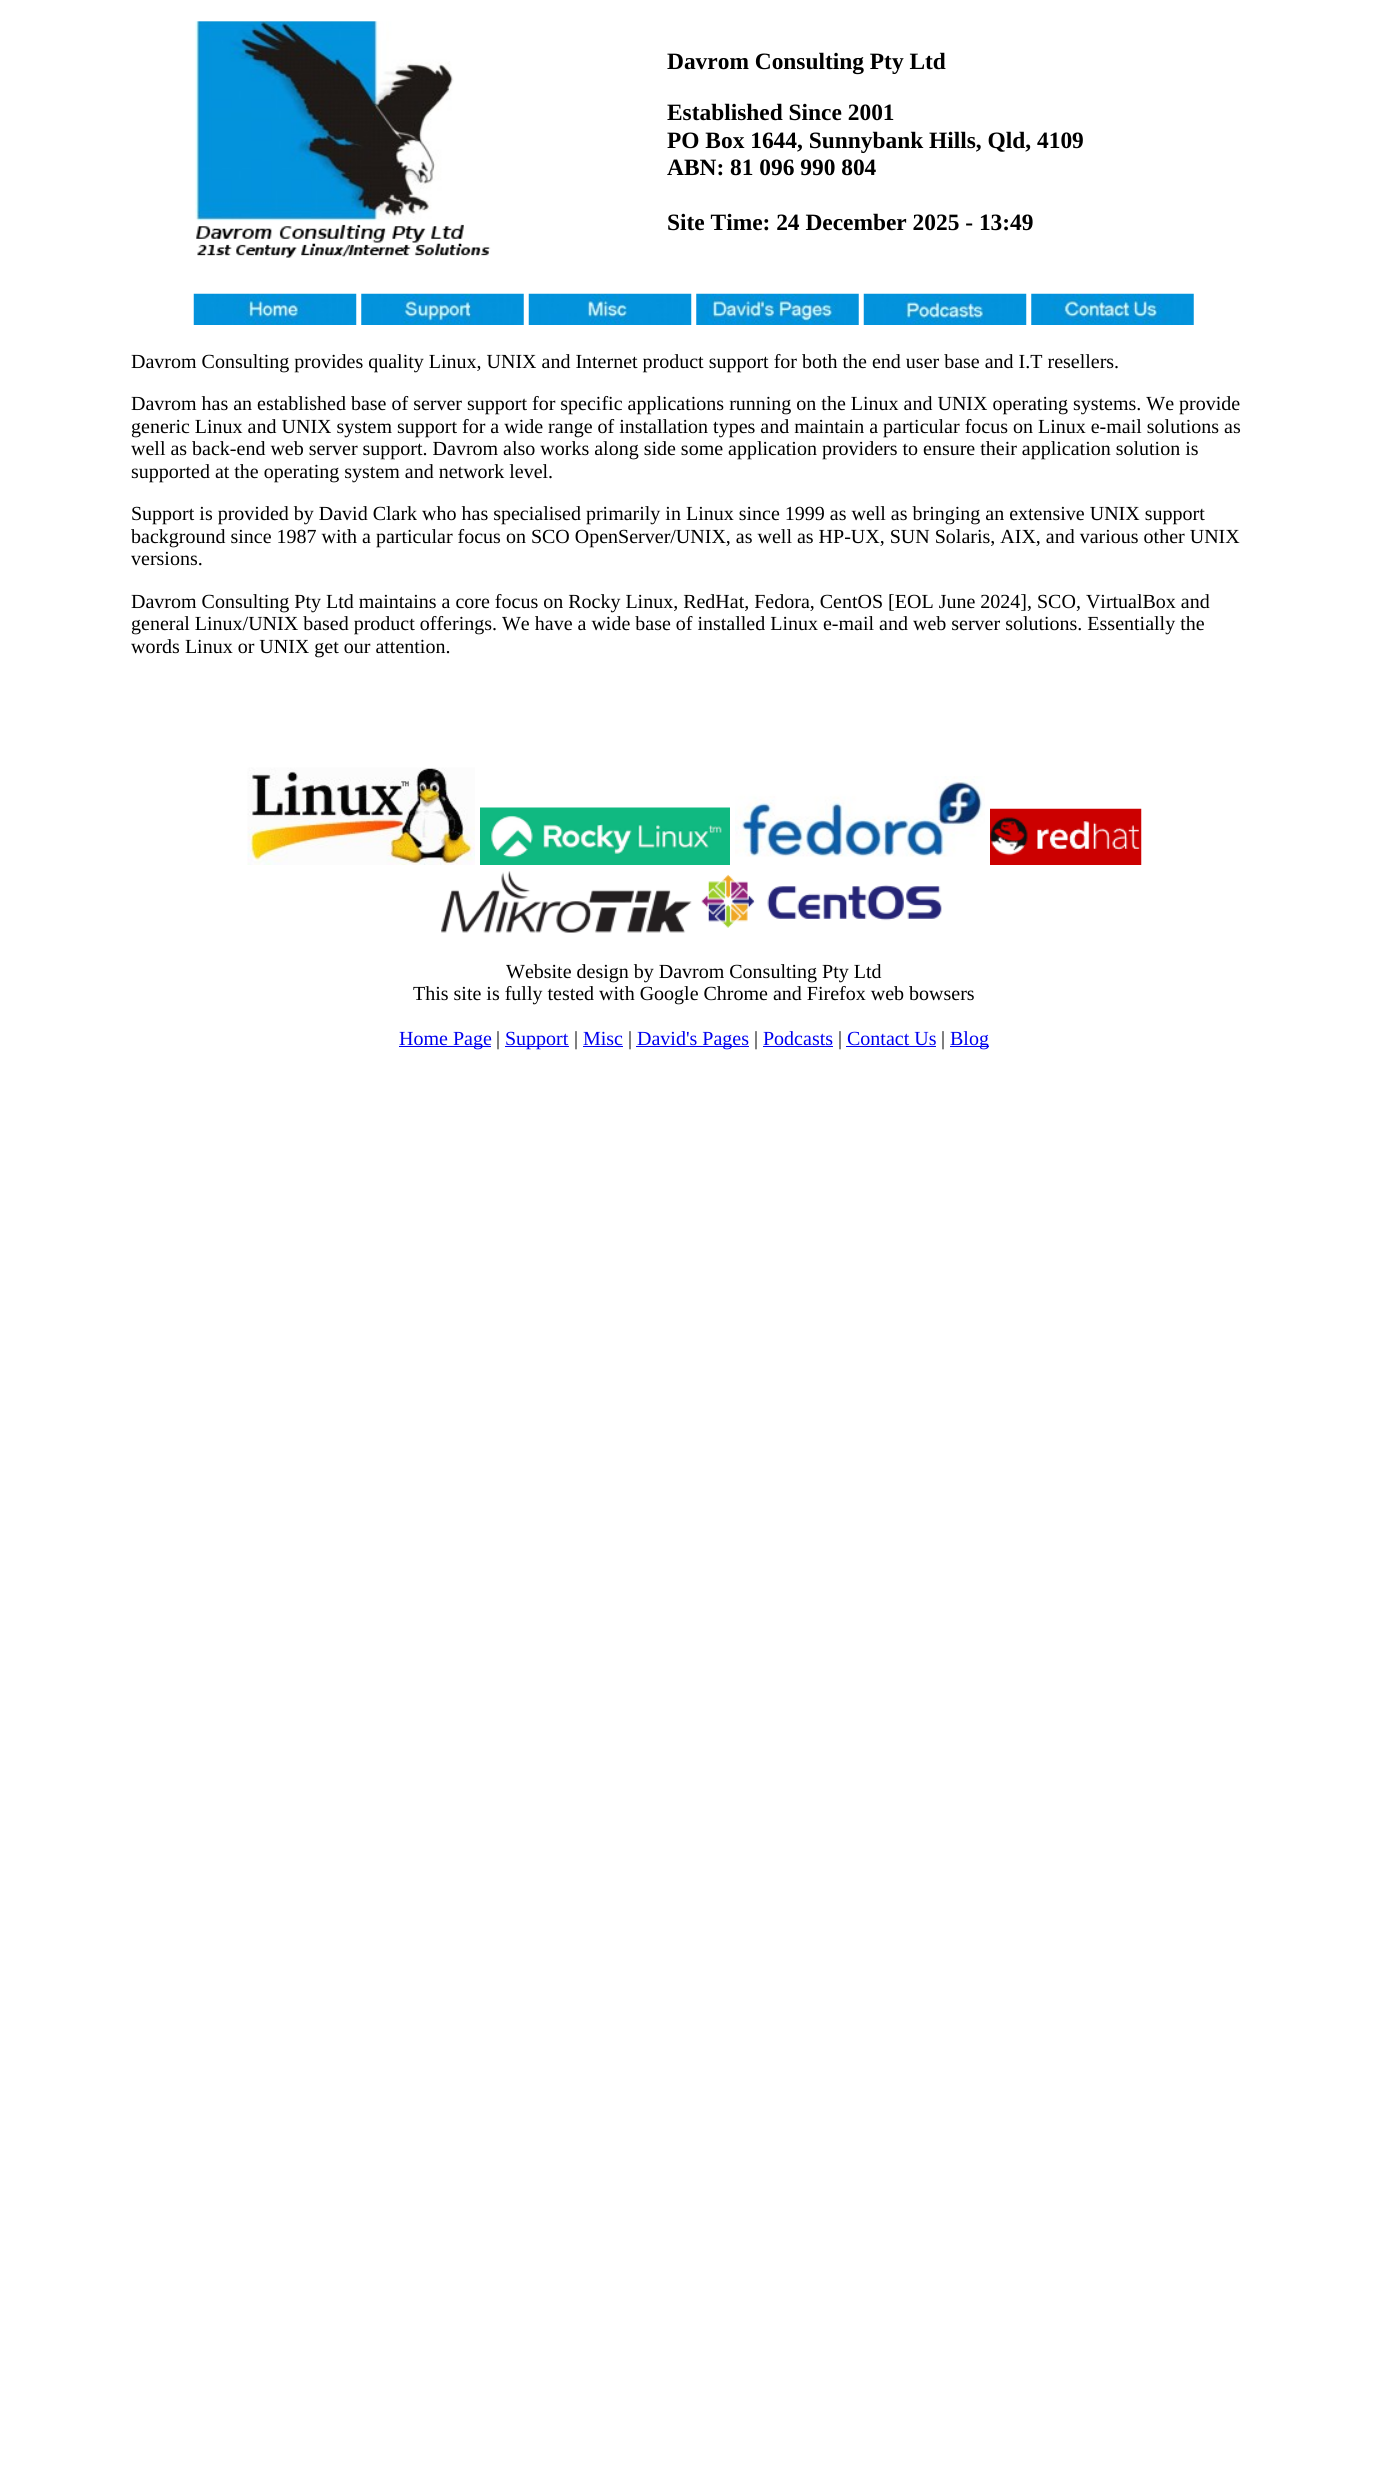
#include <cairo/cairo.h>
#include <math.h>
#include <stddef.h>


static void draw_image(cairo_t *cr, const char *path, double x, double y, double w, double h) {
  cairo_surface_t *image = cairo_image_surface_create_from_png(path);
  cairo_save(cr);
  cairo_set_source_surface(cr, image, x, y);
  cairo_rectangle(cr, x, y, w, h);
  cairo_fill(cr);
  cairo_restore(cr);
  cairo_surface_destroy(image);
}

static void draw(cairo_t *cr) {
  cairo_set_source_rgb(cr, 1, 1, 1);
  cairo_paint(cr);
  draw_image(cr, "images/1.png", 195, 21, 296, 237);
  draw_image(cr, "images/2.png", 193, 293, 164, 32);
  draw_image(cr, "images/3.png", 361, 293, 163, 32);
  draw_image(cr, "images/4.png", 528, 293, 164, 32);
  draw_image(cr, "images/5.png", 696, 293, 163, 32);
  draw_image(cr, "images/6.png", 863, 293, 164, 32);
  draw_image(cr, "images/7.png", 1031, 293, 163, 32);
  draw_image(cr, "images/8.png", 247, 767, 228, 98);
  draw_image(cr, "images/9.png", 480, 807, 250, 58);
  draw_image(cr, "images/10.png", 735, 776, 250, 81);
  draw_image(cr, "images/11.png", 990, 808, 152, 57);
  draw_image(cr, "images/12.png", 441, 871, 251, 62);
  draw_image(cr, "images/13.png", 701, 874, 241, 54);
  cairo_set_source_rgb(cr, 0, 0, 238 / 255.0);
  cairo_rectangle(cr, 399, 1046, 92, 1);
  cairo_fill(cr);
  cairo_rectangle(cr, 505, 1046, 64, 1);
  cairo_fill(cr);
  cairo_rectangle(cr, 583, 1046, 40, 1);
  cairo_fill(cr);
  cairo_rectangle(cr, 636, 1046, 113, 1);
  cairo_fill(cr);
  cairo_rectangle(cr, 763, 1046, 70, 1);
  cairo_fill(cr);
  cairo_rectangle(cr, 846, 1046, 90, 1);
  cairo_fill(cr);
  cairo_rectangle(cr, 950, 1046, 39, 1);
  cairo_fill(cr);
  cairo_select_font_face(cr, "Liberation Serif", CAIRO_FONT_SLANT_NORMAL, CAIRO_FONT_WEIGHT_BOLD);
  cairo_set_font_size(cr, 23.4);
  cairo_set_source_rgb(cr, 0, 0, 0);
  cairo_move_to(cr, 667, 69);
  cairo_show_text(cr, "Davrom Consulting Pty Ltd");
  cairo_move_to(cr, 667, 120);
  cairo_show_text(cr, "Established Since 2001");
  cairo_move_to(cr, 667, 148);
  cairo_show_text(cr, "PO Box 1644, Sunnybank Hills, Qld, 4109");
  cairo_move_to(cr, 667, 175);
  cairo_show_text(cr, "ABN: 81 096 990 804");
  cairo_move_to(cr, 667, 230);
  cairo_show_text(cr, "Site Time: 24 December 2025 - 13:49");
  cairo_select_font_face(cr, "Liberation Serif", CAIRO_FONT_SLANT_NORMAL, CAIRO_FONT_WEIGHT_NORMAL);
  cairo_set_font_size(cr, 20);
  cairo_move_to(cr, 131, 368);
  cairo_show_text(cr, "Davrom Consulting provides quality Linux, UNIX and Internet product support for both the end user base and I.T resellers.");
  cairo_move_to(cr, 131, 410);
  cairo_show_text(cr, "Davrom has an established base of server support for specific applications running on the Linux and UNIX operating systems. We provide");
  cairo_move_to(cr, 131, 433);
  cairo_show_text(cr, "generic Linux and UNIX system support for a wide range of installation types and maintain a particular focus on Linux e-mail solutions as");
  cairo_move_to(cr, 131, 455);
  cairo_show_text(cr, "well as back-end web server support. Davrom also works along side some application providers to ensure their application solution is");
  cairo_move_to(cr, 131, 478);
  cairo_show_text(cr, "supported at the operating system and network level.");
  cairo_move_to(cr, 131, 520);
  cairo_show_text(cr, "Support is provided by David Clark who has specialised primarily in Linux since 1999 as well as bringing an extensive UNIX support");
  cairo_move_to(cr, 131, 543);
  cairo_show_text(cr, "background since 1987 with a particular focus on SCO OpenServer/UNIX, as well as HP-UX, SUN Solaris, AIX, and various other UNIX");
  cairo_move_to(cr, 131, 565);
  cairo_show_text(cr, "versions.");
  cairo_move_to(cr, 131, 608);
  cairo_show_text(cr, "Davrom Consulting Pty Ltd maintains a core focus on Rocky Linux, RedHat, Fedora, CentOS [EOL June 2024], SCO, VirtualBox and");
  cairo_move_to(cr, 131, 630);
  cairo_show_text(cr, "general Linux/UNIX based product offerings. We have a wide base of installed Linux e-mail and web server solutions. Essentially the");
  cairo_move_to(cr, 131, 653);
  cairo_show_text(cr, "words Linux or UNIX get our attention.");
  cairo_move_to(cr, 506, 978);
  cairo_show_text(cr, "Website design by Davrom Consulting Pty Ltd");
  cairo_move_to(cr, 413, 1000);
  cairo_show_text(cr, "This site is fully tested with Google Chrome and Firefox web bowsers");
  cairo_set_source_rgb(cr, 0, 0, 238 / 255.0);
  cairo_move_to(cr, 399, 1045);
  cairo_show_text(cr, "Home Page");
  cairo_set_source_rgb(cr, 0, 0, 0);
  cairo_move_to(cr, 496, 1045);
  cairo_show_text(cr, "|");
  cairo_set_source_rgb(cr, 0, 0, 238 / 255.0);
  cairo_move_to(cr, 505, 1045);
  cairo_show_text(cr, "Support");
  cairo_set_source_rgb(cr, 0, 0, 0);
  cairo_move_to(cr, 574, 1045);
  cairo_show_text(cr, "|");
  cairo_set_source_rgb(cr, 0, 0, 238 / 255.0);
  cairo_move_to(cr, 583, 1045);
  cairo_show_text(cr, "Misc");
  cairo_set_source_rgb(cr, 0, 0, 0);
  cairo_move_to(cr, 628, 1045);
  cairo_show_text(cr, "|");
  cairo_set_source_rgb(cr, 0, 0, 238 / 255.0);
  cairo_move_to(cr, 637, 1045);
  cairo_show_text(cr, "David's Pages");
  cairo_set_source_rgb(cr, 0, 0, 0);
  cairo_move_to(cr, 754, 1045);
  cairo_show_text(cr, "|");
  cairo_set_source_rgb(cr, 0, 0, 238 / 255.0);
  cairo_move_to(cr, 763, 1045);
  cairo_show_text(cr, "Podcasts");
  cairo_set_source_rgb(cr, 0, 0, 0);
  cairo_move_to(cr, 838, 1045);
  cairo_show_text(cr, "|");
  cairo_set_source_rgb(cr, 0, 0, 238 / 255.0);
  cairo_move_to(cr, 847, 1045);
  cairo_show_text(cr, "Contact Us");
  cairo_set_source_rgb(cr, 0, 0, 0);
  cairo_move_to(cr, 941, 1045);
  cairo_show_text(cr, "|");
  cairo_set_source_rgb(cr, 0, 0, 238 / 255.0);
  cairo_move_to(cr, 950, 1045);
  cairo_show_text(cr, "Blog");
}

int main(void) {
  cairo_surface_t *surface = cairo_image_surface_create(CAIRO_FORMAT_RGB24, 1387, 2483);
  cairo_t *cr = cairo_create(surface);
  cairo_font_options_t *options = cairo_font_options_create();
  cairo_font_options_set_hint_metrics(options, CAIRO_HINT_METRICS_OFF);
  cairo_font_options_set_hint_style(options, CAIRO_HINT_STYLE_NONE);
  cairo_set_font_options(cr, options);
  cairo_set_miter_limit(cr, 4);
  draw(cr);
  cairo_surface_write_to_png(surface, "out.png");
  cairo_font_options_destroy(options);
  cairo_destroy(cr);
  cairo_surface_destroy(surface);
  return 0;
}
